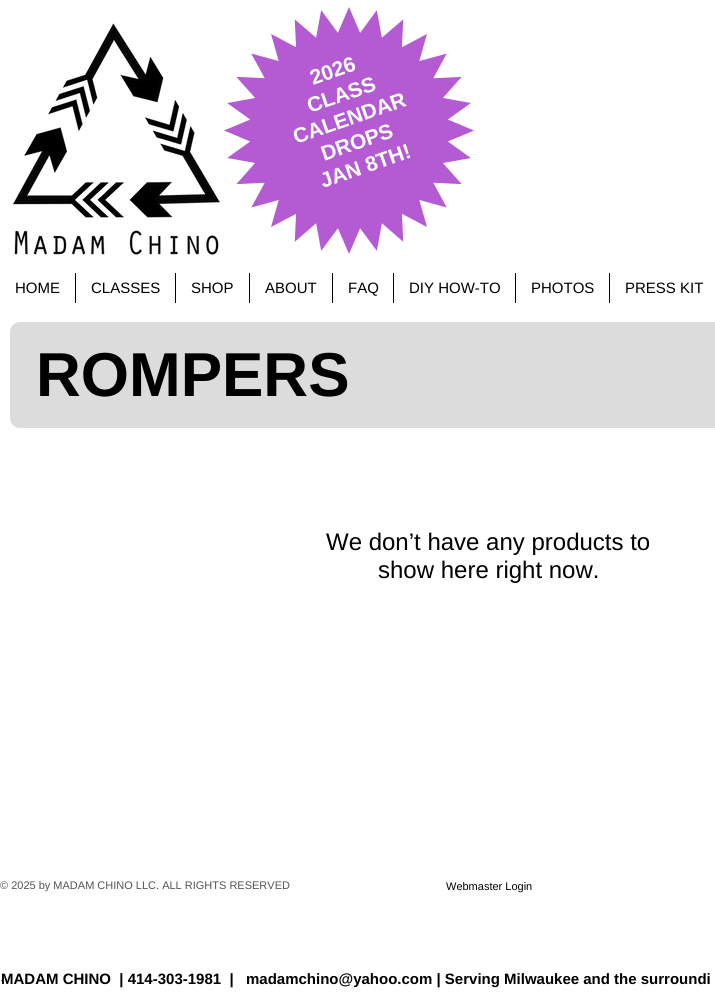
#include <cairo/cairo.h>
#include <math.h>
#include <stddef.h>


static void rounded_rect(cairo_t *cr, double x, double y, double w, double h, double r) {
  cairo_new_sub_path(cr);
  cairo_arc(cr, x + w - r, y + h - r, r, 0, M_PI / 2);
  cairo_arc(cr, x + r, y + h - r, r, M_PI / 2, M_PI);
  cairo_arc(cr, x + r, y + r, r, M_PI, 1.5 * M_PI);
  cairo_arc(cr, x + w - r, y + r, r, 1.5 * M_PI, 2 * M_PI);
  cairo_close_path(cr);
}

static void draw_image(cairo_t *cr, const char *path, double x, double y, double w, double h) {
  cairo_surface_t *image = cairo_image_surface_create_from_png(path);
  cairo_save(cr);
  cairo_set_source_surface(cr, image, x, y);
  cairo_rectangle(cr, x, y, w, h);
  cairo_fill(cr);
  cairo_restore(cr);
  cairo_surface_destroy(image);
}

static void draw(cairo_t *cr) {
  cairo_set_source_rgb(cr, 1, 1, 1);
  cairo_paint(cr);
  draw_image(cr, "images/1.png", 13, 23, 207, 232);
  draw_image(cr, "images/2.png", 224, 7, 250, 247);
  cairo_set_source_rgb(cr, 0, 0, 0);
  cairo_rectangle(cr, 75, 273, 1, 30);
  cairo_fill(cr);
  cairo_rectangle(cr, 175, 273, 1, 30);
  cairo_fill(cr);
  cairo_rectangle(cr, 249, 273, 1, 30);
  cairo_fill(cr);
  cairo_rectangle(cr, 332, 273, 1, 30);
  cairo_fill(cr);
  cairo_rectangle(cr, 393, 273, 1, 30);
  cairo_fill(cr);
  cairo_rectangle(cr, 515, 273, 1, 30);
  cairo_fill(cr);
  cairo_rectangle(cr, 609, 273, 1, 30);
  cairo_fill(cr);
  cairo_set_source_rgb(cr, 220 / 255.0, 220 / 255.0, 220 / 255.0);
  rounded_rect(cr, 10, 322, 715, 106, 10);
  cairo_fill(cr);
  cairo_select_font_face(cr, "Liberation Sans", CAIRO_FONT_SLANT_NORMAL, CAIRO_FONT_WEIGHT_BOLD);
  cairo_set_font_size(cr, 21);
  cairo_set_source_rgb(cr, 1, 1, 1);
  cairo_save(cr);
  cairo_translate(cr, 313, 85);
  cairo_rotate(cr, -19.1 * M_PI / 180);
  cairo_move_to(cr, 0, 0);
  cairo_show_text(cr, "2026");
  cairo_restore(cr);
  cairo_save(cr);
  cairo_translate(cr, 310, 113);
  cairo_rotate(cr, -19.1 * M_PI / 180);
  cairo_move_to(cr, 0, 0);
  cairo_show_text(cr, "CLASS");
  cairo_restore(cr);
  cairo_save(cr);
  cairo_translate(cr, 296, 144);
  cairo_rotate(cr, -19.1 * M_PI / 180);
  cairo_move_to(cr, 0, 0);
  cairo_show_text(cr, "CALENDAR");
  cairo_restore(cr);
  cairo_save(cr);
  cairo_translate(cr, 324, 161);
  cairo_rotate(cr, -19.1 * M_PI / 180);
  cairo_move_to(cr, 0, 0);
  cairo_show_text(cr, "DROPS");
  cairo_restore(cr);
  cairo_save(cr);
  cairo_translate(cr, 323, 188);
  cairo_rotate(cr, -19.1 * M_PI / 180);
  cairo_move_to(cr, 0, 0);
  cairo_show_text(cr, "JAN 8TH!");
  cairo_restore(cr);
  cairo_select_font_face(cr, "Liberation Sans", CAIRO_FONT_SLANT_NORMAL, CAIRO_FONT_WEIGHT_NORMAL);
  cairo_set_font_size(cr, 15);
  cairo_set_source_rgb(cr, 0, 0, 0);
  cairo_move_to(cr, 15, 293);
  cairo_show_text(cr, "HOME");
  cairo_move_to(cr, 91, 293);
  cairo_show_text(cr, "CLASSES");
  cairo_move_to(cr, 191, 293);
  cairo_show_text(cr, "SHOP");
  cairo_move_to(cr, 265, 293);
  cairo_show_text(cr, "ABOUT");
  cairo_move_to(cr, 348, 293);
  cairo_show_text(cr, "FAQ");
  cairo_move_to(cr, 409, 293);
  cairo_show_text(cr, "DIY HOW-TO");
  cairo_move_to(cr, 531, 293);
  cairo_show_text(cr, "PHOTOS");
  cairo_move_to(cr, 625, 293);
  cairo_show_text(cr, "PRESS KIT");
  cairo_select_font_face(cr, "Liberation Sans", CAIRO_FONT_SLANT_NORMAL, CAIRO_FONT_WEIGHT_BOLD);
  cairo_set_font_size(cr, 62);
  cairo_move_to(cr, 36, 396);
  cairo_show_text(cr, "ROMPERS");
  cairo_select_font_face(cr, "Liberation Sans", CAIRO_FONT_SLANT_NORMAL, CAIRO_FONT_WEIGHT_NORMAL);
  cairo_set_font_size(cr, 24);
  cairo_move_to(cr, 326, 550);
  cairo_show_text(cr, "We don’t have any products to");
  cairo_move_to(cr, 378, 578);
  cairo_show_text(cr, "show here right now.");
  cairo_set_font_size(cr, 11);
  cairo_set_source_rgb(cr, 84 / 255.0, 84 / 255.0, 84 / 255.0);
  cairo_move_to(cr, 0, 889);
  cairo_show_text(cr, "© 2025 by MADAM CHINO LLC. ALL RIGHTS RESERVED");
  cairo_set_source_rgb(cr, 0, 0, 0);
  cairo_move_to(cr, 446, 890);
  cairo_show_text(cr, "Webmaster Login");
  cairo_select_font_face(cr, "Liberation Sans", CAIRO_FONT_SLANT_NORMAL, CAIRO_FONT_WEIGHT_BOLD);
  cairo_set_font_size(cr, 15);
  cairo_move_to(cr, 1, 984);
  cairo_show_text(cr, "MADAM CHINO  | 414-303-1981  |");
  cairo_select_font_face(cr, "Liberation Sans", CAIRO_FONT_SLANT_NORMAL, CAIRO_FONT_WEIGHT_NORMAL);
  cairo_set_font_size(cr, 11);
  cairo_set_source_rgb(cr, 84 / 255.0, 84 / 255.0, 84 / 255.0);
  cairo_move_to(cr, 0, 981);
  cairo_show_text(cr, ".");
  cairo_select_font_face(cr, "Liberation Sans", CAIRO_FONT_SLANT_NORMAL, CAIRO_FONT_WEIGHT_BOLD);
  cairo_set_font_size(cr, 15);
  cairo_set_source_rgb(cr, 0, 0, 0);
  cairo_move_to(cr, 246, 984);
  cairo_show_text(cr, "madamchino@yahoo.com | Serving Milwaukee and the surroundi");
}

int main(void) {
  cairo_surface_t *surface = cairo_image_surface_create(CAIRO_FORMAT_RGB24, 715, 998);
  cairo_t *cr = cairo_create(surface);
  cairo_font_options_t *options = cairo_font_options_create();
  cairo_font_options_set_hint_metrics(options, CAIRO_HINT_METRICS_OFF);
  cairo_font_options_set_hint_style(options, CAIRO_HINT_STYLE_NONE);
  cairo_set_font_options(cr, options);
  cairo_set_miter_limit(cr, 4);
  draw(cr);
  cairo_surface_write_to_png(surface, "out.png");
  cairo_font_options_destroy(options);
  cairo_destroy(cr);
  cairo_surface_destroy(surface);
  return 0;
}
